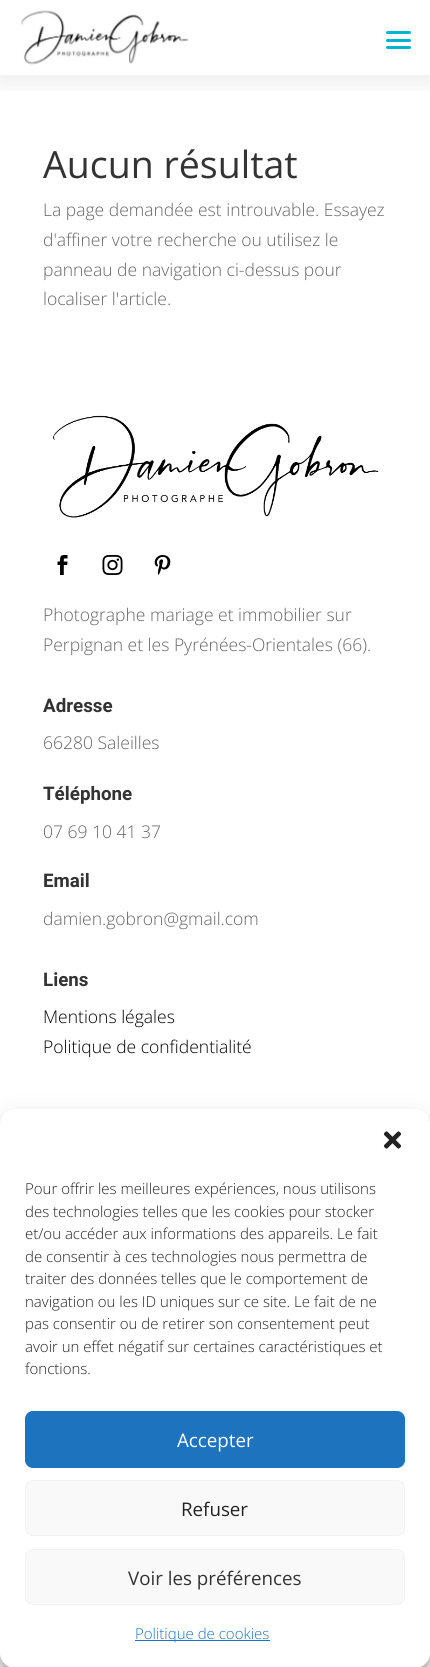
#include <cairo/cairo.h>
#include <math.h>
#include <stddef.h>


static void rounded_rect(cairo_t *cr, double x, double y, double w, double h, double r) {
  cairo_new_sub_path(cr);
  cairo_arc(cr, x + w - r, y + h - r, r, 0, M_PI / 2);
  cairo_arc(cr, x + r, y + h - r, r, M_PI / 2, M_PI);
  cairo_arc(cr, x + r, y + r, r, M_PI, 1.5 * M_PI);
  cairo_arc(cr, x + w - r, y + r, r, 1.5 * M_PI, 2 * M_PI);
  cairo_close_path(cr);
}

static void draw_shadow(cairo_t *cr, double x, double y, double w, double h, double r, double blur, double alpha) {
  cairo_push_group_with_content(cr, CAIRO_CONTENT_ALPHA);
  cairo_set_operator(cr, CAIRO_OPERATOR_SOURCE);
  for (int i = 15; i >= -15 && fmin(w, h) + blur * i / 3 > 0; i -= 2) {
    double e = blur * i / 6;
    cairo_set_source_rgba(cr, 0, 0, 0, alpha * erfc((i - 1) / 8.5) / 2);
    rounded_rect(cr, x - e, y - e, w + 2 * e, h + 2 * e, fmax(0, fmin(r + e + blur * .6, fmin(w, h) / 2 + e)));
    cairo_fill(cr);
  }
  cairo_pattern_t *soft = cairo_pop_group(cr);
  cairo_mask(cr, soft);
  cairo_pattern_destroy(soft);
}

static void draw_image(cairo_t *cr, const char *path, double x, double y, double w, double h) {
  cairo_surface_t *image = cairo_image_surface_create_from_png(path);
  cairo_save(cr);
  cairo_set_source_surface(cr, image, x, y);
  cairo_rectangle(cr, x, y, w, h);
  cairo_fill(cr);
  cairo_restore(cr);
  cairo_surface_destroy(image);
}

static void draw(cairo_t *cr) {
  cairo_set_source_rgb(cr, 1, 1, 1);
  cairo_paint(cr);
  cairo_save(cr);
  cairo_rectangle(cr, 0, 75, 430, 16);
  cairo_clip(cr);
  cairo_set_source_rgb(cr, 0, 0, 0);
  draw_shadow(cr, 0, 3, 430, 75, 0, 15.5, 0.1);
  cairo_restore(cr);
  draw_image(cr, "images/1.png", 21, 10, 168, 55);
  cairo_set_source_rgb(cr, 0, 181 / 255.0, 207 / 255.0);
  rounded_rect(cr, 386, 46, 25, 3, 1.5);
  cairo_fill(cr);
  rounded_rect(cr, 386, 31, 25, 3, 1.5);
  cairo_fill(cr);
  rounded_rect(cr, 386, 39, 25, 3, 1.5);
  cairo_fill(cr);
  draw_image(cr, "images/2.png", 53, 415, 326, 103);
  draw_image(cr, "images/3.png", 57, 555, 11, 20);
  draw_image(cr, "images/4.png", 102, 555, 21, 20);
  draw_image(cr, "images/5.png", 154, 555, 17, 20);
  cairo_set_source_rgb(cr, 0, 0, 0);
  draw_shadow(cr, 0, 1116, 430, 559, 15, 4, 0.23);
  draw_shadow(cr, 0, 1121, 430, 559, 15, 12.5, 0.19);
  cairo_set_source_rgb(cr, 1, 1, 1);
  rounded_rect(cr, 0, 1109, 430, 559, 15);
  cairo_fill(cr);
  draw_image(cr, "images/6.png", 383, 1131, 19, 18);
  cairo_set_source_rgb(cr, 30 / 255.0, 115 / 255.0, 190 / 255.0);
  rounded_rect(cr, 25.5, 1411.5, 379, 56, 7.5);
  cairo_fill_preserve(cr);
  cairo_set_line_width(cr, 1);
  cairo_stroke(cr);
  cairo_set_source_rgb(cr, 249 / 255.0, 249 / 255.0, 249 / 255.0);
  rounded_rect(cr, 25.5, 1480.5, 379, 55, 7.5);
  cairo_fill_preserve(cr);
  cairo_set_source_rgb(cr, 242 / 255.0, 242 / 255.0, 242 / 255.0);
  cairo_stroke(cr);
  cairo_set_source_rgb(cr, 249 / 255.0, 249 / 255.0, 249 / 255.0);
  rounded_rect(cr, 25.5, 1549.5, 379, 55, 7.5);
  cairo_fill_preserve(cr);
  cairo_set_source_rgb(cr, 242 / 255.0, 242 / 255.0, 242 / 255.0);
  cairo_stroke(cr);
  cairo_set_source_rgb(cr, 30 / 255.0, 115 / 255.0, 190 / 255.0);
  cairo_rectangle(cr, 135, 1640, 135, 1);
  cairo_fill(cr);
  cairo_select_font_face(cr, "Open Sans", CAIRO_FONT_SLANT_NORMAL, CAIRO_FONT_WEIGHT_NORMAL);
  cairo_set_font_size(cr, 37.5);
  cairo_set_source_rgb(cr, 51 / 255.0, 51 / 255.0, 51 / 255.0);
  cairo_move_to(cr, 43, 178);
  cairo_show_text(cr, "Aucun résultat");
  cairo_select_font_face(cr, "Open Sans Light", CAIRO_FONT_SLANT_NORMAL, CAIRO_FONT_WEIGHT_NORMAL);
  cairo_set_font_size(cr, 17.5);
  cairo_set_source_rgb(cr, 102 / 255.0, 102 / 255.0, 102 / 255.0);
  cairo_move_to(cr, 43, 216);
  cairo_show_text(cr, "La page demandée est introuvable. Essayez");
  cairo_move_to(cr, 43, 246);
  cairo_show_text(cr, "d'affiner votre recherche ou utilisez le");
  cairo_move_to(cr, 43, 276);
  cairo_show_text(cr, "panneau de navigation ci-dessus pour");
  cairo_move_to(cr, 43, 305);
  cairo_show_text(cr, "localiser l'article.");
  cairo_move_to(cr, 43, 621);
  cairo_show_text(cr, "Photographe mariage et immobilier sur");
  cairo_move_to(cr, 43, 651);
  cairo_show_text(cr, "Perpignan et les Pyrénées-Orientales (66).");
  cairo_select_font_face(cr, "Heebo", CAIRO_FONT_SLANT_NORMAL, CAIRO_FONT_WEIGHT_BOLD);
  cairo_set_font_size(cr, 18.75);
  cairo_set_source_rgb(cr, 51 / 255.0, 51 / 255.0, 51 / 255.0);
  cairo_move_to(cr, 43, 712);
  cairo_show_text(cr, "Adresse");
  cairo_select_font_face(cr, "Open Sans Light", CAIRO_FONT_SLANT_NORMAL, CAIRO_FONT_WEIGHT_NORMAL);
  cairo_set_font_size(cr, 17.5);
  cairo_set_source_rgb(cr, 102 / 255.0, 102 / 255.0, 102 / 255.0);
  cairo_move_to(cr, 43, 749);
  cairo_show_text(cr, "66280 Saleilles");
  cairo_select_font_face(cr, "Heebo", CAIRO_FONT_SLANT_NORMAL, CAIRO_FONT_WEIGHT_BOLD);
  cairo_set_font_size(cr, 18.75);
  cairo_set_source_rgb(cr, 51 / 255.0, 51 / 255.0, 51 / 255.0);
  cairo_move_to(cr, 43, 800);
  cairo_show_text(cr, "Téléphone");
  cairo_select_font_face(cr, "Open Sans Light", CAIRO_FONT_SLANT_NORMAL, CAIRO_FONT_WEIGHT_NORMAL);
  cairo_set_font_size(cr, 17.5);
  cairo_set_source_rgb(cr, 102 / 255.0, 102 / 255.0, 102 / 255.0);
  cairo_move_to(cr, 43, 838);
  cairo_show_text(cr, "07 69 10 41 37");
  cairo_select_font_face(cr, "Heebo", CAIRO_FONT_SLANT_NORMAL, CAIRO_FONT_WEIGHT_BOLD);
  cairo_set_font_size(cr, 18.75);
  cairo_set_source_rgb(cr, 51 / 255.0, 51 / 255.0, 51 / 255.0);
  cairo_move_to(cr, 43, 887);
  cairo_show_text(cr, "Email");
  cairo_select_font_face(cr, "Open Sans Light", CAIRO_FONT_SLANT_NORMAL, CAIRO_FONT_WEIGHT_NORMAL);
  cairo_set_font_size(cr, 17.5);
  cairo_set_source_rgb(cr, 102 / 255.0, 102 / 255.0, 102 / 255.0);
  cairo_move_to(cr, 43, 925);
  cairo_show_text(cr, "damien.gobron@gmail.com");
  cairo_select_font_face(cr, "Heebo", CAIRO_FONT_SLANT_NORMAL, CAIRO_FONT_WEIGHT_BOLD);
  cairo_set_font_size(cr, 18.75);
  cairo_set_source_rgb(cr, 51 / 255.0, 51 / 255.0, 51 / 255.0);
  cairo_move_to(cr, 43, 986);
  cairo_show_text(cr, "Liens");
  cairo_select_font_face(cr, "Open Sans Light", CAIRO_FONT_SLANT_NORMAL, CAIRO_FONT_WEIGHT_NORMAL);
  cairo_set_font_size(cr, 17.5);
  cairo_set_source_rgb(cr, 0, 0, 0);
  cairo_move_to(cr, 43, 1023);
  cairo_show_text(cr, "Mentions légales");
  cairo_move_to(cr, 43, 1053);
  cairo_show_text(cr, "Politique de confidentialité");
  cairo_set_font_size(cr, 15);
  cairo_set_source_rgb(cr, 34 / 255.0, 34 / 255.0, 34 / 255.0);
  cairo_move_to(cr, 25, 1194);
  cairo_show_text(cr, "Pour offrir les meilleures expériences, nous utilisons");
  cairo_move_to(cr, 25, 1217);
  cairo_show_text(cr, "des technologies telles que les cookies pour stocker");
  cairo_move_to(cr, 25, 1239);
  cairo_show_text(cr, "et/ou accéder aux informations des appareils. Le fait");
  cairo_move_to(cr, 25, 1262);
  cairo_show_text(cr, "de consentir à ces technologies nous permettra de");
  cairo_move_to(cr, 25, 1284);
  cairo_show_text(cr, "traiter des données telles que le comportement de");
  cairo_move_to(cr, 25, 1307);
  cairo_show_text(cr, "navigation ou les ID uniques sur ce site. Le fait de ne");
  cairo_move_to(cr, 25, 1329);
  cairo_show_text(cr, "pas consentir ou de retirer son consentement peut");
  cairo_move_to(cr, 25, 1352);
  cairo_show_text(cr, "avoir un effet négatif sur certaines caractéristiques et");
  cairo_move_to(cr, 25, 1374);
  cairo_show_text(cr, "fonctions.");
  cairo_select_font_face(cr, "Open Sans", CAIRO_FONT_SLANT_NORMAL, CAIRO_FONT_WEIGHT_NORMAL);
  cairo_set_font_size(cr, 18.75);
  cairo_set_source_rgb(cr, 1, 1, 1);
  cairo_move_to(cr, 177, 1447);
  cairo_show_text(cr, "Accepter");
  cairo_set_source_rgb(cr, 34 / 255.0, 34 / 255.0, 34 / 255.0);
  cairo_move_to(cr, 181, 1516);
  cairo_show_text(cr, "Refuser");
  cairo_set_source_rgb(cr, 51 / 255.0, 51 / 255.0, 51 / 255.0);
  cairo_move_to(cr, 128, 1585);
  cairo_show_text(cr, "Voir les préférences");
  cairo_select_font_face(cr, "Open Sans Light", CAIRO_FONT_SLANT_NORMAL, CAIRO_FONT_WEIGHT_NORMAL);
  cairo_set_font_size(cr, 15);
  cairo_set_source_rgb(cr, 30 / 255.0, 115 / 255.0, 190 / 255.0);
  cairo_move_to(cr, 135, 1639);
  cairo_show_text(cr, "Politique de cookies");
}

int main(void) {
  cairo_surface_t *surface = cairo_image_surface_create(CAIRO_FORMAT_RGB24, 430, 1667);
  cairo_t *cr = cairo_create(surface);
  cairo_font_options_t *options = cairo_font_options_create();
  cairo_font_options_set_hint_metrics(options, CAIRO_HINT_METRICS_OFF);
  cairo_font_options_set_hint_style(options, CAIRO_HINT_STYLE_NONE);
  cairo_set_font_options(cr, options);
  cairo_set_miter_limit(cr, 4);
  draw(cr);
  cairo_surface_write_to_png(surface, "out.png");
  cairo_font_options_destroy(options);
  cairo_destroy(cr);
  cairo_surface_destroy(surface);
  return 0;
}
